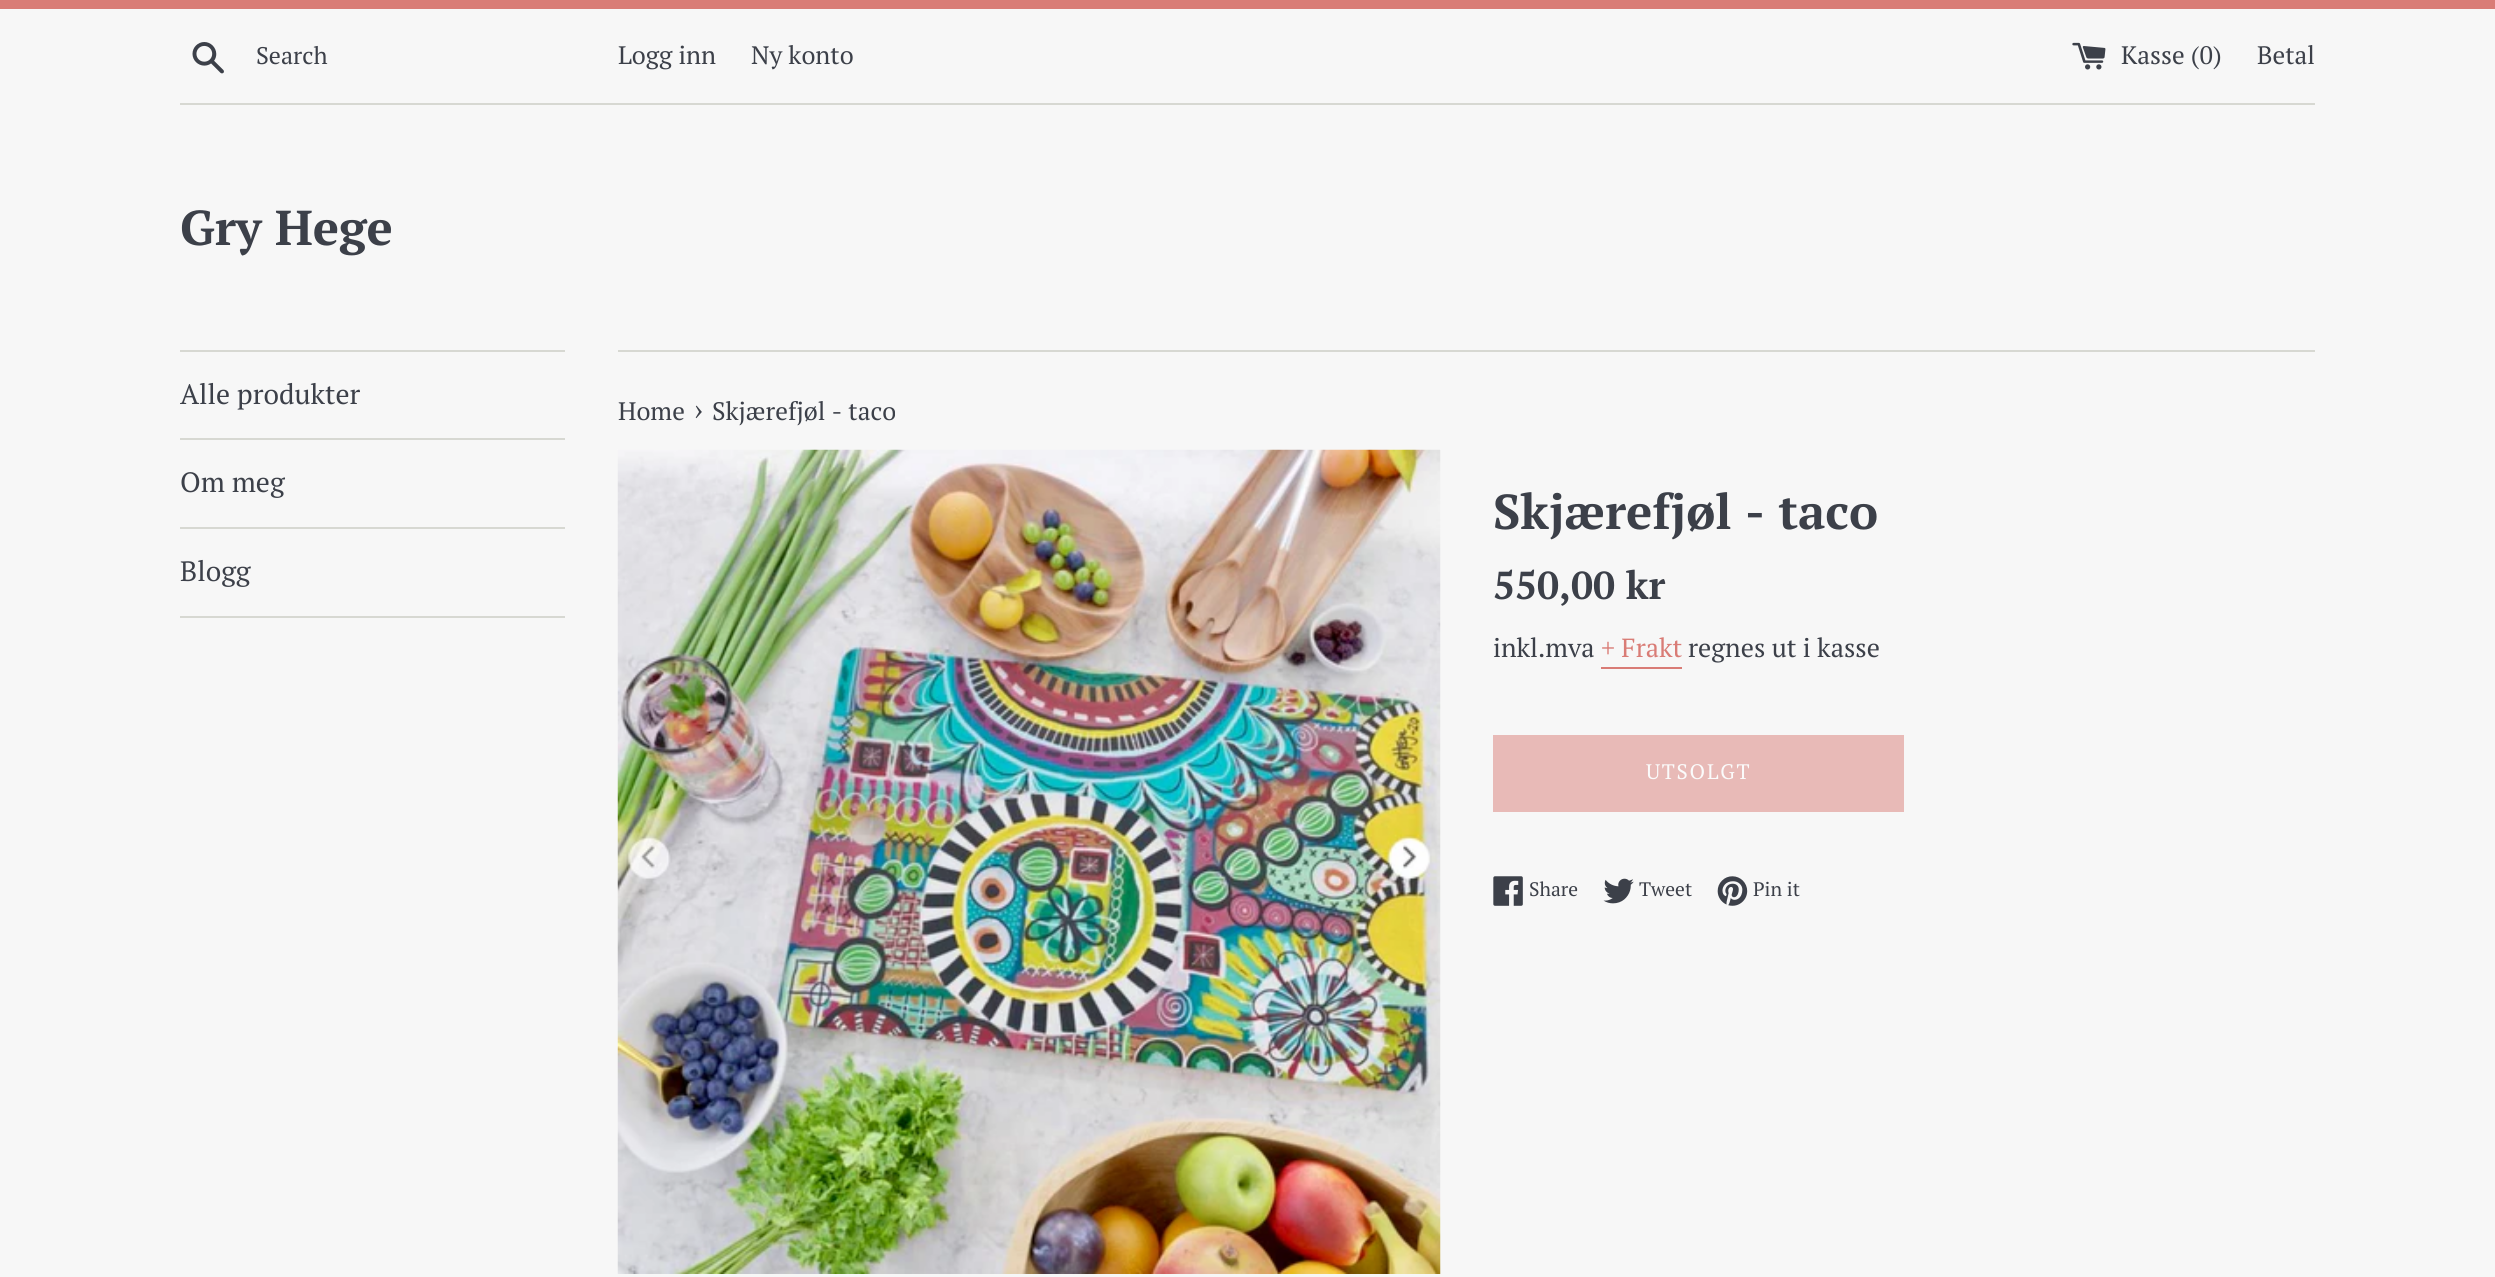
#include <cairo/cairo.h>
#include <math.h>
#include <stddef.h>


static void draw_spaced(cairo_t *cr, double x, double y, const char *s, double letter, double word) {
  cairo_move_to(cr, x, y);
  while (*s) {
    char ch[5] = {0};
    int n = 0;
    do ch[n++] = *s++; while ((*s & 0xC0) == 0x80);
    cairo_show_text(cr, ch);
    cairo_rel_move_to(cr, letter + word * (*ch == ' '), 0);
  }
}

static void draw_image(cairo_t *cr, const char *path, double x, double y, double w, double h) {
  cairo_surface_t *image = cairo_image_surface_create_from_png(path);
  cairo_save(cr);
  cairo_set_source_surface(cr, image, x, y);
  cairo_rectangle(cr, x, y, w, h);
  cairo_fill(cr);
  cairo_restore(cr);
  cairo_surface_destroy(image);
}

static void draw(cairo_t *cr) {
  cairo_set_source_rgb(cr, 247 / 255.0, 247 / 255.0, 247 / 255.0);
  cairo_paint(cr);
  cairo_set_source_rgb(cr, 217 / 255.0, 124 / 255.0, 118 / 255.0);
  cairo_rectangle(cr, 0, 0, 2495, 9);
  cairo_fill(cr);
  draw_image(cr, "images/1.png", 192, 42, 32, 32);
  draw_image(cr, "images/2.png", 2072, 42, 34, 28);
  cairo_set_source_rgb(cr, 215 / 255.0, 216 / 255.0, 210 / 255.0);
  cairo_rectangle(cr, 180, 103, 2135, 2);
  cairo_fill(cr);
  cairo_rectangle(cr, 180, 350, 385, 2);
  cairo_fill(cr);
  cairo_rectangle(cr, 180, 438, 385, 2);
  cairo_fill(cr);
  cairo_rectangle(cr, 180, 527, 385, 2);
  cairo_fill(cr);
  cairo_rectangle(cr, 180, 616, 385, 2);
  cairo_fill(cr);
  cairo_rectangle(cr, 618, 350, 1697, 2);
  cairo_fill(cr);
  draw_image(cr, "images/3.png", 617, 449, 824, 825);
  cairo_set_source_rgb(cr, 217 / 255.0, 124 / 255.0, 118 / 255.0);
  cairo_rectangle(cr, 1601, 667, 81, 2);
  cairo_fill(cr);
  cairo_set_source_rgb(cr, 232 / 255.0, 186 / 255.0, 183 / 255.0);
  cairo_rectangle(cr, 1493, 735, 411, 77);
  cairo_fill(cr);
  draw_image(cr, "images/4.png", 1493, 876, 30, 30);
  draw_image(cr, "images/5.png", 1603, 878, 31, 26);
  draw_image(cr, "images/6.png", 1717, 876, 31, 30);
  cairo_select_font_face(cr, "PT Serif", CAIRO_FONT_SLANT_NORMAL, CAIRO_FONT_WEIGHT_NORMAL);
  cairo_set_font_size(cr, 24);
  cairo_set_source_rgb(cr, 60 / 255.0, 64 / 255.0, 73 / 255.0);
  cairo_move_to(cr, 256, 64);
  cairo_show_text(cr, "Search");
  cairo_set_font_size(cr, 25.25);
  cairo_move_to(cr, 618, 64);
  cairo_show_text(cr, "Logg inn");
  cairo_move_to(cr, 751, 64);
  cairo_show_text(cr, "Ny konto");
  cairo_move_to(cr, 2121, 64);
  cairo_show_text(cr, "Kasse (0)");
  cairo_move_to(cr, 2257, 64);
  cairo_show_text(cr, "Betal");
  cairo_select_font_face(cr, "PT Serif", CAIRO_FONT_SLANT_NORMAL, CAIRO_FONT_WEIGHT_BOLD);
  cairo_set_font_size(cr, 49);
  cairo_move_to(cr, 180, 245);
  cairo_show_text(cr, "Gry Hege");
  cairo_select_font_face(cr, "PT Serif", CAIRO_FONT_SLANT_NORMAL, CAIRO_FONT_WEIGHT_NORMAL);
  cairo_set_font_size(cr, 28);
  cairo_move_to(cr, 180, 404);
  cairo_show_text(cr, "Alle produkter");
  cairo_move_to(cr, 180, 492);
  cairo_show_text(cr, "Om meg");
  cairo_move_to(cr, 180, 581);
  cairo_show_text(cr, "Blogg");
  cairo_set_font_size(cr, 25.25);
  cairo_move_to(cr, 618, 420);
  cairo_show_text(cr, "Home");
  cairo_set_font_size(cr, 31);
  cairo_move_to(cr, 694, 420);
  cairo_show_text(cr, "›");
  cairo_set_font_size(cr, 25.25);
  cairo_move_to(cr, 712, 420);
  cairo_show_text(cr, "Skjærefjøl - taco");
  cairo_select_font_face(cr, "PT Serif", CAIRO_FONT_SLANT_NORMAL, CAIRO_FONT_WEIGHT_BOLD);
  cairo_set_font_size(cr, 49);
  cairo_move_to(cr, 1493, 529);
  cairo_show_text(cr, "Skjærefjøl - taco");
  cairo_set_font_size(cr, 39);
  cairo_move_to(cr, 1493, 599);
  cairo_show_text(cr, "550,00 kr");
  cairo_select_font_face(cr, "PT Serif", CAIRO_FONT_SLANT_NORMAL, CAIRO_FONT_WEIGHT_NORMAL);
  cairo_set_font_size(cr, 26.25);
  cairo_move_to(cr, 1493, 657);
  cairo_show_text(cr, "inkl.mva");
  cairo_set_source_rgb(cr, 217 / 255.0, 124 / 255.0, 118 / 255.0);
  cairo_move_to(cr, 1601, 657);
  cairo_show_text(cr, "+ Frakt");
  cairo_set_source_rgb(cr, 60 / 255.0, 64 / 255.0, 73 / 255.0);
  cairo_move_to(cr, 1688, 657);
  cairo_show_text(cr, "regnes ut i kasse");
  cairo_set_font_size(cr, 21);
  cairo_set_source_rgb(cr, 251 / 255.0, 251 / 255.0, 251 / 255.0);
  draw_spaced(cr, 1646, 779, "UTSOLGT", 1.75, 0);
  cairo_set_font_size(cr, 19.5);
  cairo_set_source_rgb(cr, 60 / 255.0, 64 / 255.0, 73 / 255.0);
  cairo_move_to(cr, 1529, 896);
  cairo_show_text(cr, "Share");
  cairo_move_to(cr, 1639, 896);
  cairo_show_text(cr, "Tweet");
  cairo_move_to(cr, 1753, 896);
  cairo_show_text(cr, "Pin it");
}

int main(void) {
  cairo_surface_t *surface = cairo_image_surface_create(CAIRO_FORMAT_RGB24, 2495, 1277);
  cairo_t *cr = cairo_create(surface);
  cairo_font_options_t *options = cairo_font_options_create();
  cairo_font_options_set_hint_metrics(options, CAIRO_HINT_METRICS_OFF);
  cairo_font_options_set_hint_style(options, CAIRO_HINT_STYLE_NONE);
  cairo_set_font_options(cr, options);
  cairo_set_miter_limit(cr, 4);
  draw(cr);
  cairo_surface_write_to_png(surface, "out.png");
  cairo_font_options_destroy(options);
  cairo_destroy(cr);
  cairo_surface_destroy(surface);
  return 0;
}
